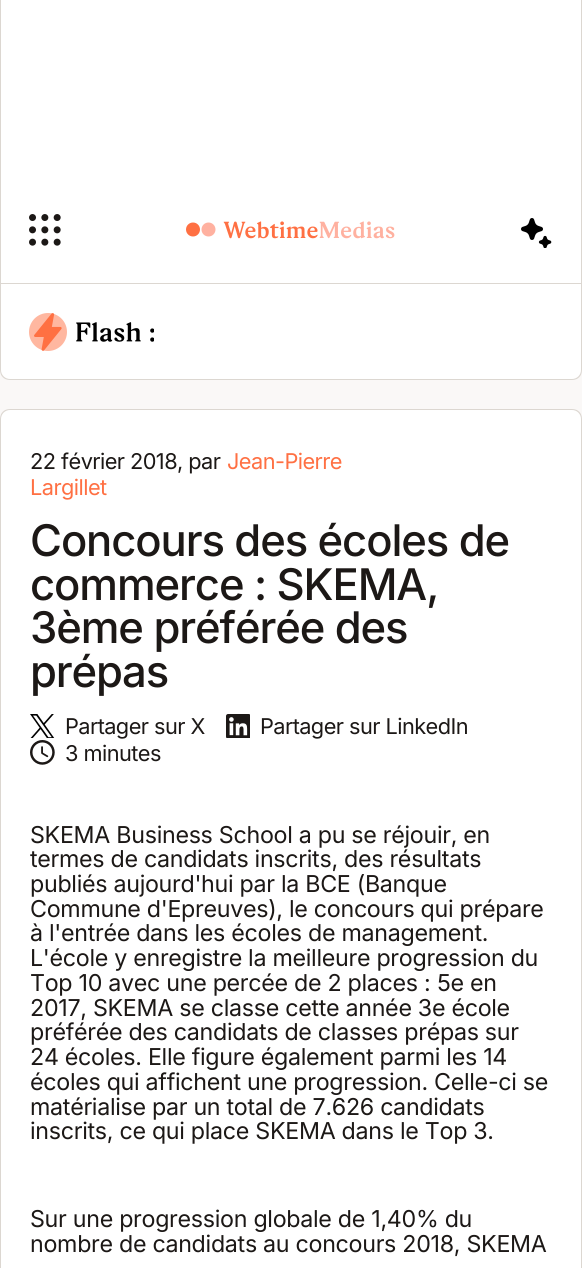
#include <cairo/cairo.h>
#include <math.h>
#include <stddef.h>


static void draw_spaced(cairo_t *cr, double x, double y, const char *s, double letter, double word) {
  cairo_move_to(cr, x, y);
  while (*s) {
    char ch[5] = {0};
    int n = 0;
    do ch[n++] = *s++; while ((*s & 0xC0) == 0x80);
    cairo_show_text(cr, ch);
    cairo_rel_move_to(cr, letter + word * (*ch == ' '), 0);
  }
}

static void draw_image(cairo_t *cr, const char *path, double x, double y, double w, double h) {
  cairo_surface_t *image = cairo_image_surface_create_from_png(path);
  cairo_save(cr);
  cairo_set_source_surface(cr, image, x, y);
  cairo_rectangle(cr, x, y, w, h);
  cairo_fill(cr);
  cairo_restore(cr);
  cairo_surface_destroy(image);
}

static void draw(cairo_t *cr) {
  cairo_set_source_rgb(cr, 250 / 255.0, 248 / 255.0, 247 / 255.0);
  cairo_paint(cr);
  cairo_set_source_rgb(cr, 1, 1, 1);
  cairo_new_path(cr);
  cairo_move_to(cr, 0, 0);
  cairo_line_to(cr, 582, 0);
  cairo_line_to(cr, 582, 370);
  cairo_curve_to(cr, 582, 375.5, 577.5, 380, 572, 380);
  cairo_line_to(cr, 10, 380);
  cairo_curve_to(cr, 4.5, 380, 0, 375.5, 0, 370);
  cairo_close_path(cr);
  cairo_fill(cr);
  cairo_set_source_rgb(cr, 220 / 255.0, 215 / 255.0, 209 / 255.0);
  cairo_set_fill_rule(cr, CAIRO_FILL_RULE_EVEN_ODD);
  cairo_new_path(cr);
  cairo_move_to(cr, 0, 0);
  cairo_line_to(cr, 582, 0);
  cairo_line_to(cr, 582, 370);
  cairo_curve_to(cr, 582, 376, 578, 380, 572, 380);
  cairo_line_to(cr, 10, 380);
  cairo_curve_to(cr, 4, 380, 0, 376, 0, 370);
  cairo_close_path(cr);
  cairo_move_to(cr, 1, 0);
  cairo_line_to(cr, 581, 0);
  cairo_line_to(cr, 581, 370);
  cairo_curve_to(cr, 581, 375, 577, 379, 572, 379);
  cairo_line_to(cr, 10, 379);
  cairo_curve_to(cr, 5, 379, 1, 375, 1, 370);
  cairo_close_path(cr);
  cairo_fill(cr);
  cairo_rectangle(cr, 0, 283, 582, 1);
  cairo_fill(cr);
  draw_image(cr, "images/1.png", 29, 214, 32, 32);
  draw_image(cr, "images/2.png", 186, 221, 209, 18);
  draw_image(cr, "images/3.png", 521, 218, 31, 30);
  draw_image(cr, "images/4.png", 34, 313, 28, 38);
  cairo_set_source_rgba(cr, 1, 112 / 255.0, 67 / 255.0, 0.5);
  cairo_arc(cr, 48, 332, 19, 0, 2 * M_PI);
  cairo_fill(cr);
  draw_image(cr, "images/5.png", 76, 322, 78, 20);
  cairo_set_source_rgb(cr, 1, 1, 1);
  cairo_new_path(cr);
  cairo_move_to(cr, 10, 409);
  cairo_line_to(cr, 572, 409);
  cairo_curve_to(cr, 577.5, 409, 582, 413.5, 582, 419);
  cairo_line_to(cr, 582, 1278);
  cairo_line_to(cr, 0, 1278);
  cairo_line_to(cr, 0, 419);
  cairo_curve_to(cr, 0, 413.5, 4.5, 409, 10, 409);
  cairo_close_path(cr);
  cairo_fill(cr);
  cairo_set_source_rgb(cr, 220 / 255.0, 215 / 255.0, 209 / 255.0);
  cairo_new_path(cr);
  cairo_move_to(cr, 10, 409);
  cairo_line_to(cr, 572, 409);
  cairo_curve_to(cr, 578, 409, 582, 413, 582, 419);
  cairo_line_to(cr, 582, 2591);
  cairo_line_to(cr, 0, 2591);
  cairo_line_to(cr, 0, 419);
  cairo_curve_to(cr, 0, 413, 4, 409, 10, 409);
  cairo_close_path(cr);
  cairo_move_to(cr, 10, 410);
  cairo_line_to(cr, 572, 410);
  cairo_curve_to(cr, 577, 410, 581, 414, 581, 419);
  cairo_line_to(cr, 581, 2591);
  cairo_line_to(cr, 1, 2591);
  cairo_line_to(cr, 1, 419);
  cairo_curve_to(cr, 1, 414, 5, 410, 10, 410);
  cairo_close_path(cr);
  cairo_fill(cr);
  draw_image(cr, "images/6.png", 30, 714, 25, 24);
  draw_image(cr, "images/7.png", 226, 714, 24, 24);
  draw_image(cr, "images/8.png", 30, 740, 25, 25);
  cairo_select_font_face(cr, "Inter", CAIRO_FONT_SLANT_NORMAL, CAIRO_FONT_WEIGHT_NORMAL);
  cairo_set_font_size(cr, 21.75);
  cairo_set_source_rgb(cr, 28 / 255.0, 24 / 255.0, 22 / 255.0);
  draw_spaced(cr, 30, 469, "22 février 2018, par", -0.55, 0);
  cairo_set_source_rgb(cr, 1, 112 / 255.0, 67 / 255.0);
  draw_spaced(cr, 227, 469, "Jean-Pierre", -0.55, 0);
  draw_spaced(cr, 30, 495, "Largillet", -0.55, 0);
  cairo_select_font_face(cr, "Inter Medium", CAIRO_FONT_SLANT_NORMAL, CAIRO_FONT_WEIGHT_NORMAL);
  cairo_set_font_size(cr, 43.6);
  cairo_set_source_rgb(cr, 28 / 255.0, 24 / 255.0, 22 / 255.0);
  draw_spaced(cr, 30, 556, "Concours des écoles de", -1.1, 0);
  draw_spaced(cr, 30, 600, "commerce : SKEMA,", -1.1, 0);
  draw_spaced(cr, 30, 643, "3ème préférée des", -1.1, 0);
  draw_spaced(cr, 30, 687, "prépas", -1.1, 0);
  cairo_select_font_face(cr, "Inter", CAIRO_FONT_SLANT_NORMAL, CAIRO_FONT_WEIGHT_NORMAL);
  cairo_set_font_size(cr, 21.75);
  draw_spaced(cr, 65, 734, "Partager sur X", -0.55, 0);
  draw_spaced(cr, 260, 734, "Partager sur LinkedIn", -0.55, 0);
  draw_spaced(cr, 65, 761, "3 minutes", -0.55, 0);
  cairo_set_font_size(cr, 23.25);
  draw_spaced(cr, 30, 843, "SKEMA Business School a pu se réjouir, en", -0.3, 0);
  draw_spaced(cr, 30, 867, "termes de candidats inscrits, des résultats", -0.3, 0);
  draw_spaced(cr, 30, 892, "publiés aujourd'hui par la BCE (Banque", -0.3, 0);
  draw_spaced(cr, 30, 917, "Commune d'Epreuves), le concours qui prépare", -0.3, 0);
  draw_spaced(cr, 30, 941, "à l'entrée dans les écoles de management.", -0.3, 0);
  draw_spaced(cr, 30, 966, "L'école y enregistre la meilleure progression du", -0.3, 0);
  draw_spaced(cr, 30, 991, "Top 10 avec une percée de 2 places : 5e en", -0.3, 0);
  draw_spaced(cr, 30, 1016, "2017, SKEMA se classe cette année 3e école", -0.3, 0);
  draw_spaced(cr, 30, 1040, "préférée des candidats de classes prépas sur", -0.3, 0);
  draw_spaced(cr, 30, 1065, "24 écoles. Elle figure également parmi les 14", -0.3, 0);
  draw_spaced(cr, 30, 1090, "écoles qui affichent une progression. Celle-ci se", -0.3, 0);
  draw_spaced(cr, 30, 1115, "matérialise par un total de 7.626 candidats", -0.3, 0);
  draw_spaced(cr, 30, 1139, "inscrits, ce qui place SKEMA dans le Top 3.", -0.3, 0);
  draw_spaced(cr, 30, 1227, "Sur une progression globale de 1,40% du", -0.3, 0);
  draw_spaced(cr, 30, 1252, "nombre de candidats au concours 2018, SKEMA", -0.3, 0);
}

int main(void) {
  cairo_surface_t *surface = cairo_image_surface_create(CAIRO_FORMAT_RGB24, 582, 1268);
  cairo_t *cr = cairo_create(surface);
  cairo_font_options_t *options = cairo_font_options_create();
  cairo_font_options_set_hint_metrics(options, CAIRO_HINT_METRICS_OFF);
  cairo_font_options_set_hint_style(options, CAIRO_HINT_STYLE_NONE);
  cairo_set_font_options(cr, options);
  cairo_set_miter_limit(cr, 4);
  draw(cr);
  cairo_surface_write_to_png(surface, "out.png");
  cairo_font_options_destroy(options);
  cairo_destroy(cr);
  cairo_surface_destroy(surface);
  return 0;
}
